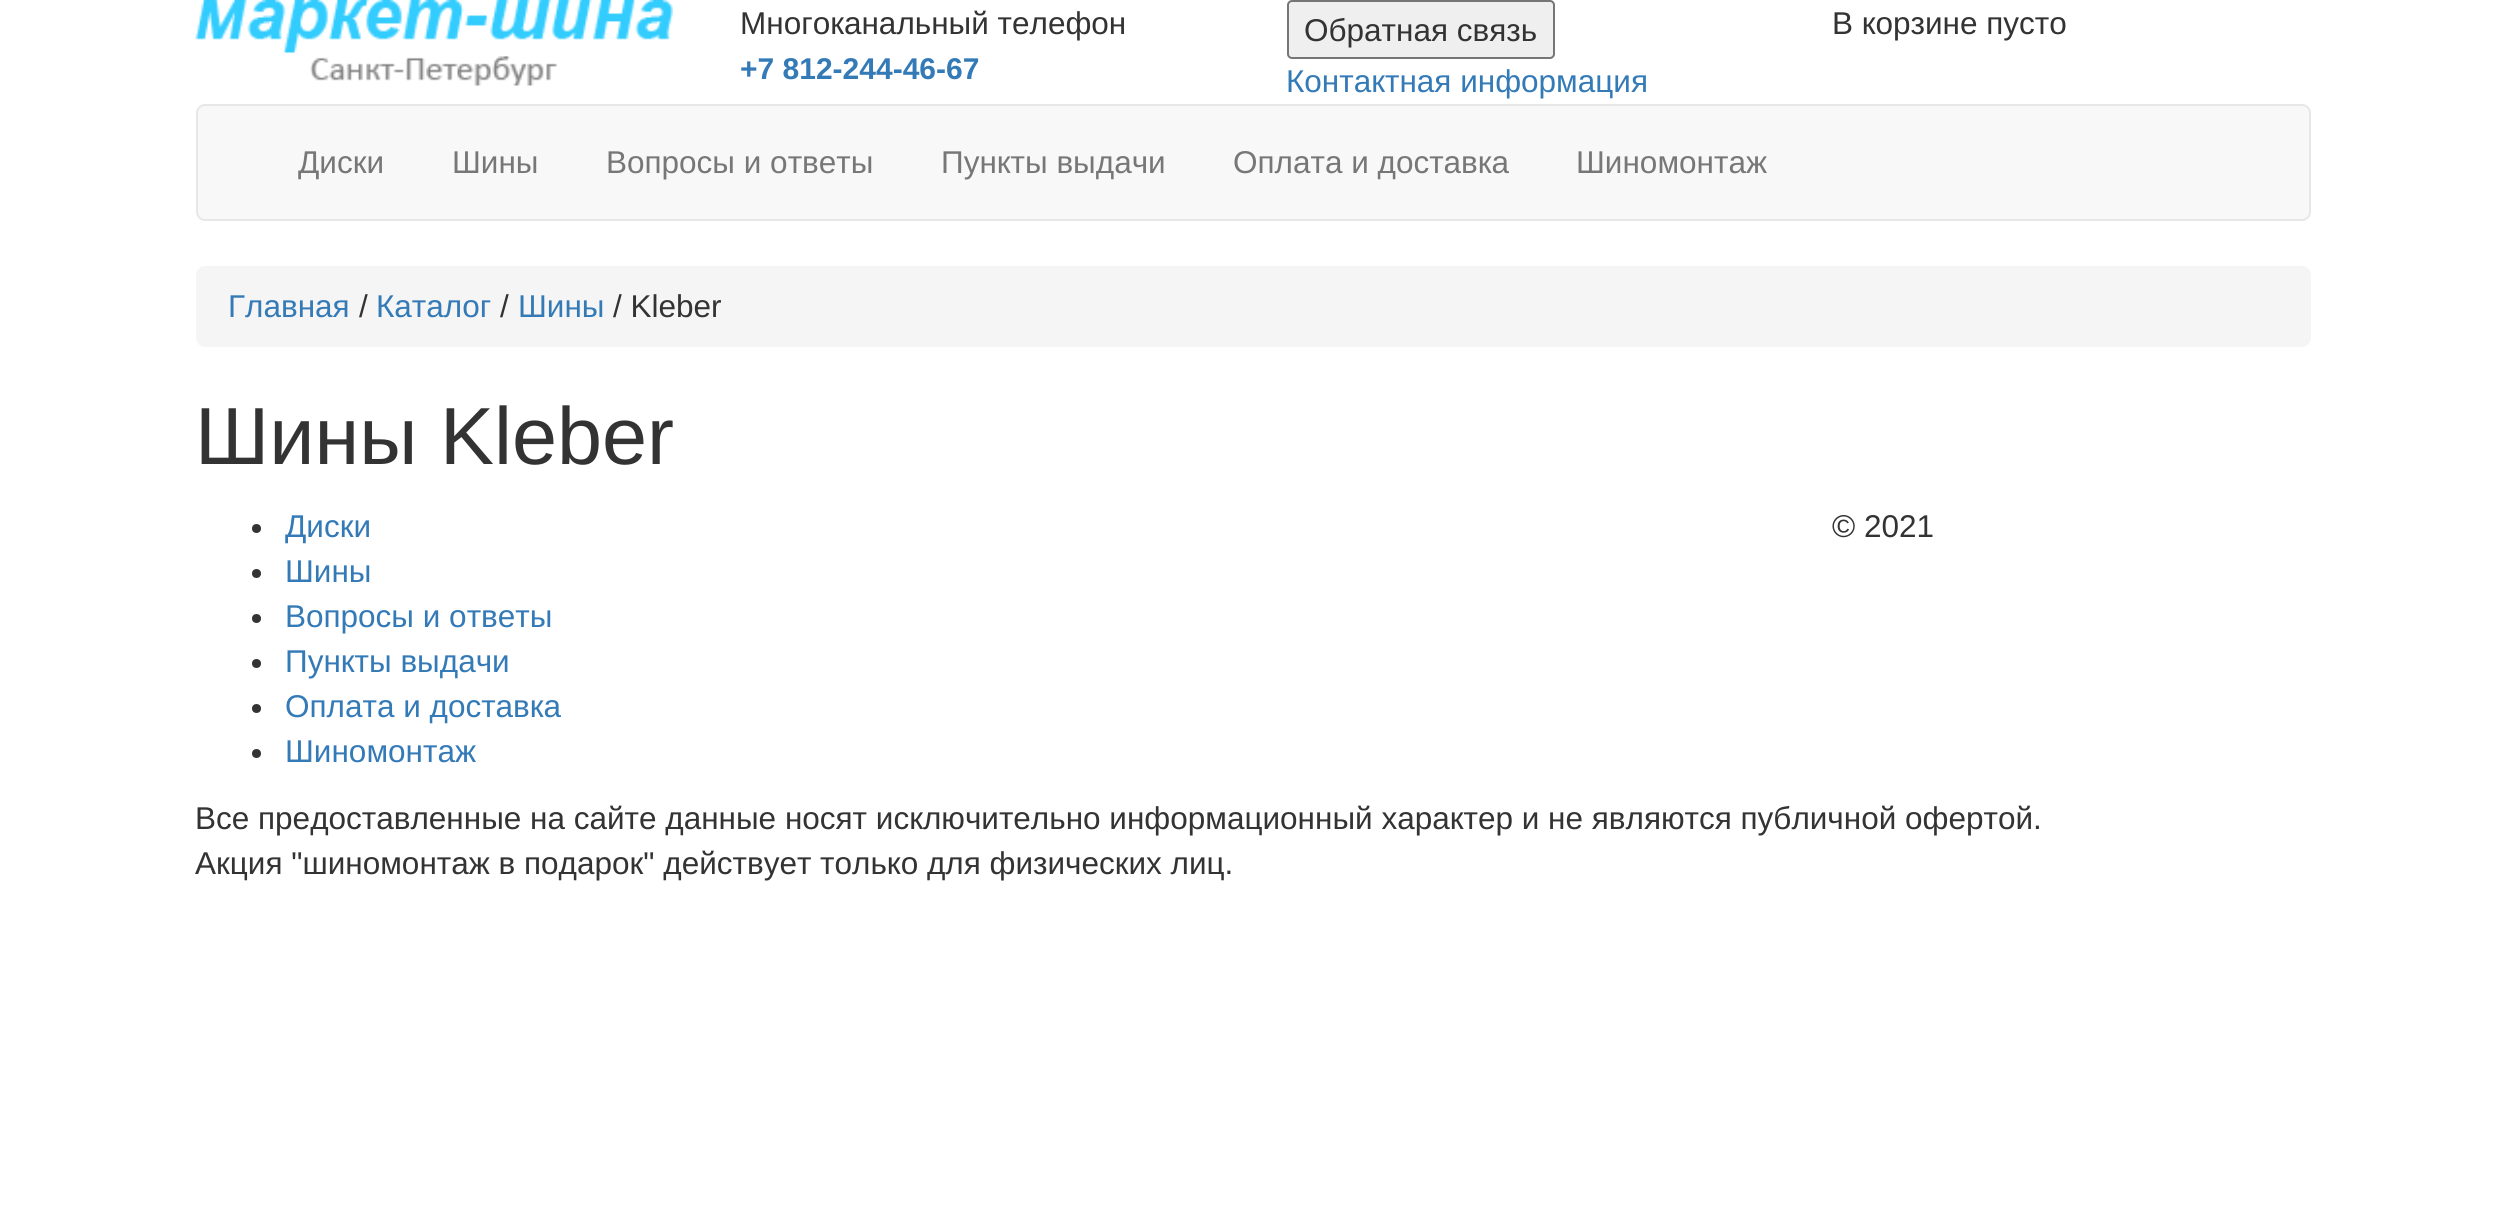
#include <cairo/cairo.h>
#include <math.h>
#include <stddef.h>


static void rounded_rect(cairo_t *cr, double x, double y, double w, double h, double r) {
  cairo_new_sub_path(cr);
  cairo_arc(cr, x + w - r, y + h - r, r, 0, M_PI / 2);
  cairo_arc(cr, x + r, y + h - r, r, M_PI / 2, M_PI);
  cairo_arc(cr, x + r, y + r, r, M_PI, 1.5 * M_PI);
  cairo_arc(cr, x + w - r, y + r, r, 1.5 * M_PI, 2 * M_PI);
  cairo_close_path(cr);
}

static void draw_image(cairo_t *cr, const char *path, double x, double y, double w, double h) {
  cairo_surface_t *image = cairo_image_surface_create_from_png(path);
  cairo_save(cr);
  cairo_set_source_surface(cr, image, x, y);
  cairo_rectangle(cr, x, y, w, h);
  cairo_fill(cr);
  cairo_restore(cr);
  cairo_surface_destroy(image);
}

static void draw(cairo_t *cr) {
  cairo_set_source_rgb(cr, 1, 1, 1);
  cairo_paint(cr);
  draw_image(cr, "images/1.png", 195, 0, 478, 86);
  cairo_set_source_rgb(cr, 239 / 255.0, 239 / 255.0, 239 / 255.0);
  rounded_rect(cr, 1288, 1, 266, 57, 4);
  cairo_fill_preserve(cr);
  cairo_set_source_rgb(cr, 118 / 255.0, 118 / 255.0, 118 / 255.0);
  cairo_stroke(cr);
  cairo_set_source_rgb(cr, 248 / 255.0, 248 / 255.0, 248 / 255.0);
  rounded_rect(cr, 197, 105, 2113, 115, 8);
  cairo_fill_preserve(cr);
  cairo_set_source_rgb(cr, 231 / 255.0, 231 / 255.0, 231 / 255.0);
  cairo_stroke(cr);
  cairo_set_source_rgb(cr, 245 / 255.0, 245 / 255.0, 245 / 255.0);
  rounded_rect(cr, 196, 266, 2115, 81, 9);
  cairo_fill(cr);
  cairo_set_source_rgb(cr, 51 / 255.0, 51 / 255.0, 51 / 255.0);
  cairo_arc(cr, 256.5, 528.5, 4.5, 0, 2 * M_PI);
  cairo_fill(cr);
  cairo_arc(cr, 256.5, 573.5, 4.5, 0, 2 * M_PI);
  cairo_fill(cr);
  cairo_arc(cr, 256.5, 618.5, 4.5, 0, 2 * M_PI);
  cairo_fill(cr);
  cairo_arc(cr, 256.5, 663.5, 4.5, 0, 2 * M_PI);
  cairo_fill(cr);
  cairo_arc(cr, 256.5, 708.5, 4.5, 0, 2 * M_PI);
  cairo_fill(cr);
  cairo_arc(cr, 256.5, 753.5, 4.5, 0, 2 * M_PI);
  cairo_fill(cr);
  cairo_select_font_face(cr, "Liberation Sans", CAIRO_FONT_SLANT_NORMAL, CAIRO_FONT_WEIGHT_NORMAL);
  cairo_set_font_size(cr, 31.5);
  cairo_move_to(cr, 740, 34);
  cairo_show_text(cr, "Многоканальный телефон");
  cairo_select_font_face(cr, "Liberation Sans", CAIRO_FONT_SLANT_NORMAL, CAIRO_FONT_WEIGHT_BOLD);
  cairo_set_font_size(cr, 30);
  cairo_set_source_rgb(cr, 51 / 255.0, 122 / 255.0, 183 / 255.0);
  cairo_move_to(cr, 740, 79);
  cairo_show_text(cr, "+7 812-244-46-67");
  cairo_select_font_face(cr, "Liberation Sans", CAIRO_FONT_SLANT_NORMAL, CAIRO_FONT_WEIGHT_NORMAL);
  cairo_set_font_size(cr, 31.5);
  cairo_set_source_rgb(cr, 51 / 255.0, 51 / 255.0, 51 / 255.0);
  cairo_move_to(cr, 1304, 41);
  cairo_show_text(cr, "Обратная связь");
  cairo_set_source_rgb(cr, 51 / 255.0, 122 / 255.0, 183 / 255.0);
  cairo_move_to(cr, 1286, 92);
  cairo_show_text(cr, "Контактная информация");
  cairo_set_source_rgb(cr, 51 / 255.0, 51 / 255.0, 51 / 255.0);
  cairo_move_to(cr, 1832, 34);
  cairo_show_text(cr, "В корзине пусто");
  cairo_set_source_rgb(cr, 119 / 255.0, 119 / 255.0, 119 / 255.0);
  cairo_move_to(cr, 298, 173);
  cairo_show_text(cr, "Диски");
  cairo_move_to(cr, 452, 173);
  cairo_show_text(cr, "Шины");
  cairo_move_to(cr, 606, 173);
  cairo_show_text(cr, "Вопросы и ответы");
  cairo_move_to(cr, 941, 173);
  cairo_show_text(cr, "Пункты выдачи");
  cairo_move_to(cr, 1233, 173);
  cairo_show_text(cr, "Оплата и доставка");
  cairo_move_to(cr, 1576, 173);
  cairo_show_text(cr, "Шиномонтаж");
  cairo_set_source_rgb(cr, 51 / 255.0, 122 / 255.0, 183 / 255.0);
  cairo_move_to(cr, 228, 317);
  cairo_show_text(cr, "Главная");
  cairo_set_source_rgb(cr, 51 / 255.0, 51 / 255.0, 51 / 255.0);
  cairo_move_to(cr, 359, 317);
  cairo_show_text(cr, "/");
  cairo_set_source_rgb(cr, 51 / 255.0, 122 / 255.0, 183 / 255.0);
  cairo_move_to(cr, 376, 317);
  cairo_show_text(cr, "Каталог");
  cairo_set_source_rgb(cr, 51 / 255.0, 51 / 255.0, 51 / 255.0);
  cairo_move_to(cr, 500, 317);
  cairo_show_text(cr, "/");
  cairo_set_source_rgb(cr, 51 / 255.0, 122 / 255.0, 183 / 255.0);
  cairo_move_to(cr, 518, 317);
  cairo_show_text(cr, "Шины");
  cairo_set_source_rgb(cr, 51 / 255.0, 51 / 255.0, 51 / 255.0);
  cairo_move_to(cr, 613, 317);
  cairo_show_text(cr, "/ Kleber");
  cairo_set_font_size(cr, 81);
  cairo_move_to(cr, 195, 464);
  cairo_show_text(cr, "Шины Kleber");
  cairo_set_font_size(cr, 31.5);
  cairo_set_source_rgb(cr, 51 / 255.0, 122 / 255.0, 183 / 255.0);
  cairo_move_to(cr, 285, 537);
  cairo_show_text(cr, "Диски");
  cairo_move_to(cr, 285, 582);
  cairo_show_text(cr, "Шины");
  cairo_move_to(cr, 285, 627);
  cairo_show_text(cr, "Вопросы и ответы");
  cairo_move_to(cr, 285, 672);
  cairo_show_text(cr, "Пункты выдачи");
  cairo_move_to(cr, 285, 717);
  cairo_show_text(cr, "Оплата и доставка");
  cairo_move_to(cr, 285, 762);
  cairo_show_text(cr, "Шиномонтаж");
  cairo_set_source_rgb(cr, 51 / 255.0, 51 / 255.0, 51 / 255.0);
  cairo_move_to(cr, 1832, 537);
  cairo_show_text(cr, "© 2021");
  cairo_move_to(cr, 195, 829);
  cairo_show_text(cr, "Все предоставленные на сайте данные носят исключительно информационный характер и не являются публичной офертой.");
  cairo_move_to(cr, 195, 874);
  cairo_show_text(cr, "Акция \"шиномонтаж в подарок\" действует только для физических лиц.");
}

int main(void) {
  cairo_surface_t *surface = cairo_image_surface_create(CAIRO_FORMAT_RGB24, 2503, 1226);
  cairo_t *cr = cairo_create(surface);
  cairo_font_options_t *options = cairo_font_options_create();
  cairo_font_options_set_hint_metrics(options, CAIRO_HINT_METRICS_OFF);
  cairo_font_options_set_hint_style(options, CAIRO_HINT_STYLE_NONE);
  cairo_set_font_options(cr, options);
  cairo_set_miter_limit(cr, 4);
  draw(cr);
  cairo_surface_write_to_png(surface, "out.png");
  cairo_font_options_destroy(options);
  cairo_destroy(cr);
  cairo_surface_destroy(surface);
  return 0;
}
